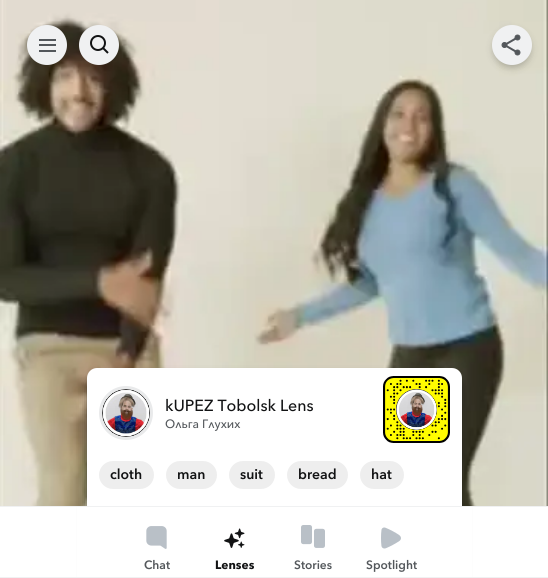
#include <cairo/cairo.h>
#include <math.h>
#include <stddef.h>


static void rounded_rect(cairo_t *cr, double x, double y, double w, double h, double r) {
  cairo_new_sub_path(cr);
  cairo_arc(cr, x + w - r, y + h - r, r, 0, M_PI / 2);
  cairo_arc(cr, x + r, y + h - r, r, M_PI / 2, M_PI);
  cairo_arc(cr, x + r, y + r, r, M_PI, 1.5 * M_PI);
  cairo_arc(cr, x + w - r, y + r, r, 1.5 * M_PI, 2 * M_PI);
  cairo_close_path(cr);
}

static void draw_shadow(cairo_t *cr, double x, double y, double w, double h, double r, double blur, double alpha) {
  cairo_push_group_with_content(cr, CAIRO_CONTENT_ALPHA);
  cairo_set_operator(cr, CAIRO_OPERATOR_SOURCE);
  for (int i = 15; i >= -15 && fmin(w, h) + blur * i / 3 > 0; i -= 2) {
    double e = blur * i / 6;
    cairo_set_source_rgba(cr, 0, 0, 0, alpha * erfc((i - 1) / 8.5) / 2);
    rounded_rect(cr, x - e, y - e, w + 2 * e, h + 2 * e, fmax(0, fmin(r + e + blur * .6, fmin(w, h) / 2 + e)));
    cairo_fill(cr);
  }
  cairo_pattern_t *soft = cairo_pop_group(cr);
  cairo_mask(cr, soft);
  cairo_pattern_destroy(soft);
}

static void draw_image(cairo_t *cr, const char *path, double x, double y, double w, double h) {
  cairo_surface_t *image = cairo_image_surface_create_from_png(path);
  cairo_save(cr);
  cairo_set_source_surface(cr, image, x, y);
  cairo_rectangle(cr, x, y, w, h);
  cairo_fill(cr);
  cairo_restore(cr);
  cairo_surface_destroy(image);
}

static void draw(cairo_t *cr) {
  cairo_set_source_rgb(cr, 1, 1, 1);
  cairo_paint(cr);
  draw_image(cr, "images/2.png", 0, 0, 548, 506);
  cairo_set_source_rgb(cr, 0, 0, 0);
  draw_shadow(cr, 494, 31, 36, 36, 18, 4, 0.25);
  cairo_set_source_rgb(cr, 240 / 255.0, 241 / 255.0, 242 / 255.0);
  cairo_arc(cr, 512, 45, 20, 0, 2 * M_PI);
  cairo_fill(cr);
  draw_image(cr, "images/1.png", 501, 34, 20, 22);
  cairo_set_source_rgb(cr, 18 / 255.0, 19 / 255.0, 20 / 255.0);
  draw_shadow(cr, 91, 380, 367, 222, 6, 6, 1);
  cairo_set_source_rgb(cr, 1, 1, 1);
  cairo_new_path(cr);
  cairo_move_to(cr, 97, 368);
  cairo_line_to(cr, 452, 368);
  cairo_curve_to(cr, 457.5, 368, 462, 372.5, 462, 378);
  cairo_line_to(cr, 462, 512);
  cairo_line_to(cr, 87, 512);
  cairo_line_to(cr, 87, 378);
  cairo_curve_to(cr, 87, 372.5, 91.5, 368, 97, 368);
  cairo_close_path(cr);
  cairo_fill(cr);
  cairo_arc(cr, 126, 413, 25.5, 0, 2 * M_PI);
  cairo_set_source_rgb(cr, 233 / 255.0, 234 / 255.0, 235 / 255.0);
  cairo_set_line_width(cr, 3);
  cairo_stroke(cr);
  draw_image(cr, "images/3.png", 102, 389, 48, 48);
  draw_image(cr, "images/4.png", 383, 376, 67, 67);
  cairo_set_source_rgb(cr, 238 / 255.0, 238 / 255.0, 238 / 255.0);
  rounded_rect(cr, 99, 461, 55, 28, 14);
  cairo_fill(cr);
  rounded_rect(cr, 166, 461, 51, 28, 14);
  cairo_fill(cr);
  rounded_rect(cr, 229, 461, 46, 28, 14);
  cairo_fill(cr);
  rounded_rect(cr, 287, 461, 61, 28, 14);
  cairo_fill(cr);
  rounded_rect(cr, 360, 461, 44, 28, 14);
  cairo_fill(cr);
  cairo_set_source_rgb(cr, 240 / 255.0, 241 / 255.0, 242 / 255.0);
  cairo_arc(cr, 47, 45, 20, 0, 2 * M_PI);
  cairo_fill(cr);
  cairo_set_source_rgb(cr, 83 / 255.0, 87 / 255.0, 91 / 255.0);
  cairo_rectangle(cr, 39, 39, 17, 2);
  cairo_fill(cr);
  cairo_rectangle(cr, 39, 44, 17, 2);
  cairo_fill(cr);
  cairo_rectangle(cr, 39, 50, 17, 2);
  cairo_fill(cr);
  cairo_set_source_rgb(cr, 240 / 255.0, 241 / 255.0, 242 / 255.0);
  cairo_arc(cr, 99, 45, 20, 0, 2 * M_PI);
  cairo_fill(cr);
  draw_image(cr, "images/5.png", 90, 35, 19, 19);
  cairo_set_source_rgb(cr, 1, 1, 1);
  cairo_rectangle(cr, 77, 507, 395, 70);
  cairo_fill(cr);
  cairo_set_source_rgb(cr, 240 / 255.0, 241 / 255.0, 242 / 255.0);
  cairo_rectangle(cr, 0, 506, 548, 1);
  cairo_fill(cr);
  cairo_rectangle(cr, 0, 577, 548, 1);
  cairo_fill(cr);
  draw_image(cr, "images/6.png", 146, 526, 21, 23);
  draw_image(cr, "images/7.png", 224, 528, 21, 20);
  draw_image(cr, "images/8.png", 301, 525, 24, 23);
  draw_image(cr, "images/9.png", 381, 527, 20, 22);
  cairo_select_font_face(cr, "Avenir Next Medium", CAIRO_FONT_SLANT_NORMAL, CAIRO_FONT_WEIGHT_NORMAL);
  cairo_set_font_size(cr, 16);
  cairo_set_source_rgb(cr, 18 / 255.0, 19 / 255.0, 20 / 255.0);
  cairo_move_to(cr, 165, 411);
  cairo_show_text(cr, "kUPEZ Tobolsk Lens");
  cairo_set_font_size(cr, 12);
  cairo_set_source_rgb(cr, 83 / 255.0, 87 / 255.0, 91 / 255.0);
  cairo_move_to(cr, 165, 428);
  cairo_show_text(cr, "Ольга Глухих");
  cairo_select_font_face(cr, "Avenir Next SemiBold", CAIRO_FONT_SLANT_NORMAL, CAIRO_FONT_WEIGHT_NORMAL);
  cairo_set_font_size(cr, 14);
  cairo_set_source_rgb(cr, 18 / 255.0, 19 / 255.0, 20 / 255.0);
  cairo_move_to(cr, 110, 479);
  cairo_show_text(cr, "cloth");
  cairo_move_to(cr, 177, 479);
  cairo_show_text(cr, "man");
  cairo_move_to(cr, 240, 479);
  cairo_show_text(cr, "suit");
  cairo_move_to(cr, 298, 479);
  cairo_show_text(cr, "bread");
  cairo_move_to(cr, 371, 479);
  cairo_show_text(cr, "hat");
  cairo_set_font_size(cr, 12);
  cairo_set_source_rgb(cr, 83 / 255.0, 87 / 255.0, 91 / 255.0);
  cairo_move_to(cr, 144, 569);
  cairo_show_text(cr, "Chat");
  cairo_select_font_face(cr, "Avenir Next", CAIRO_FONT_SLANT_NORMAL, CAIRO_FONT_WEIGHT_BOLD);
  cairo_set_source_rgb(cr, 18 / 255.0, 19 / 255.0, 20 / 255.0);
  cairo_move_to(cr, 215, 569);
  cairo_show_text(cr, "Lenses");
  cairo_select_font_face(cr, "Avenir Next SemiBold", CAIRO_FONT_SLANT_NORMAL, CAIRO_FONT_WEIGHT_NORMAL);
  cairo_set_source_rgb(cr, 83 / 255.0, 87 / 255.0, 91 / 255.0);
  cairo_move_to(cr, 294, 569);
  cairo_show_text(cr, "Stories");
  cairo_move_to(cr, 366, 569);
  cairo_show_text(cr, "Spotlight");
}

int main(void) {
  cairo_surface_t *surface = cairo_image_surface_create(CAIRO_FORMAT_RGB24, 548, 578);
  cairo_t *cr = cairo_create(surface);
  cairo_font_options_t *options = cairo_font_options_create();
  cairo_font_options_set_hint_metrics(options, CAIRO_HINT_METRICS_OFF);
  cairo_font_options_set_hint_style(options, CAIRO_HINT_STYLE_NONE);
  cairo_set_font_options(cr, options);
  cairo_set_miter_limit(cr, 4);
  draw(cr);
  cairo_surface_write_to_png(surface, "out.png");
  cairo_font_options_destroy(options);
  cairo_destroy(cr);
  cairo_surface_destroy(surface);
  return 0;
}
